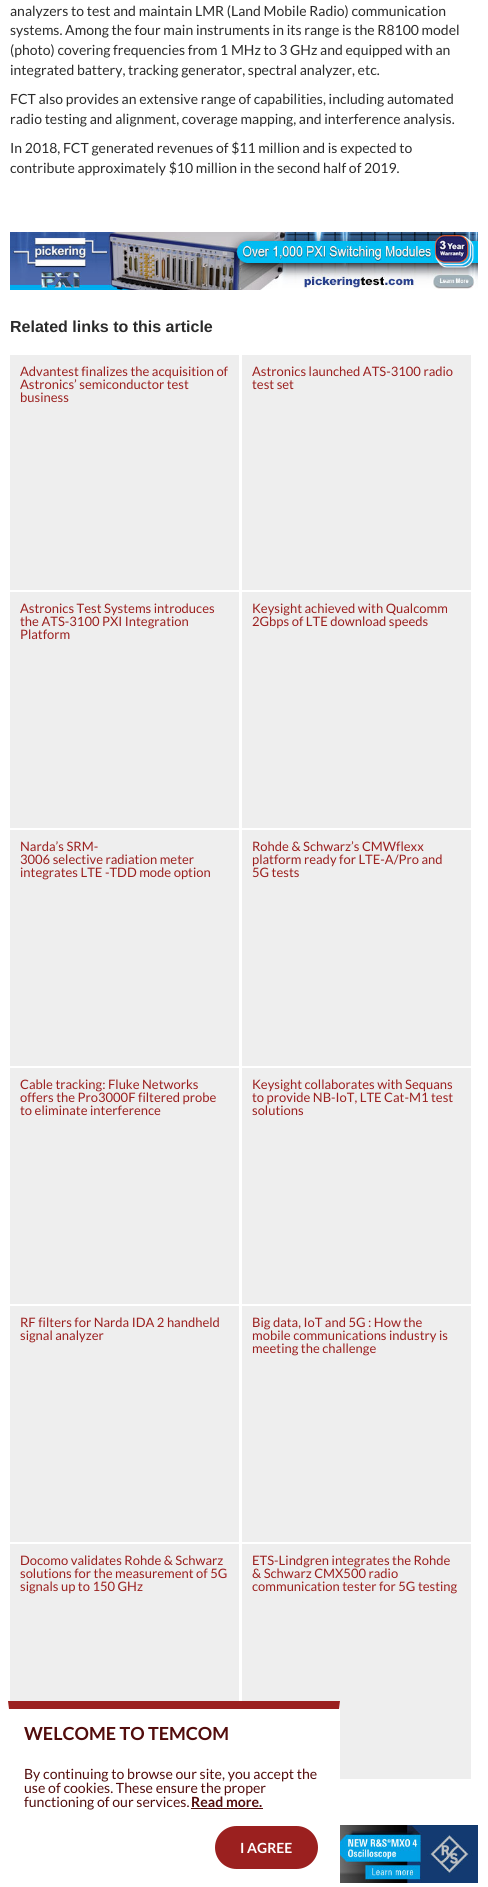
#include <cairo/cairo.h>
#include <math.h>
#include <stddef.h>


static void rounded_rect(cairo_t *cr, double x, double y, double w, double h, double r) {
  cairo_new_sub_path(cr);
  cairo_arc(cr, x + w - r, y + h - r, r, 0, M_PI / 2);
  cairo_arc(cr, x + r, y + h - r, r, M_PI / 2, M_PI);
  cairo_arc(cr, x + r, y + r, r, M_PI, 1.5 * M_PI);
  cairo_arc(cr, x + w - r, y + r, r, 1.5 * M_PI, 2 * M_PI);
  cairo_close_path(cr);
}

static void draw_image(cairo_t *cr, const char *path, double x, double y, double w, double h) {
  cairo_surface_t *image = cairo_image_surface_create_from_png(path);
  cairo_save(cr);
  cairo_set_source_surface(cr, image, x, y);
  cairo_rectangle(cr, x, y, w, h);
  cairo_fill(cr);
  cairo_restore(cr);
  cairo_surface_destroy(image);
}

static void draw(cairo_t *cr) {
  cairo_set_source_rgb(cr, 1, 1, 1);
  cairo_paint(cr);
  draw_image(cr, "images/1.png", 10, 232, 468, 58);
  cairo_set_source_rgb(cr, 238 / 255.0, 238 / 255.0, 238 / 255.0);
  cairo_rectangle(cr, 10, 355, 229, 235);
  cairo_fill(cr);
  cairo_rectangle(cr, 242, 355, 229, 235);
  cairo_fill(cr);
  cairo_rectangle(cr, 10, 592, 229, 236);
  cairo_fill(cr);
  cairo_rectangle(cr, 242, 592, 229, 236);
  cairo_fill(cr);
  cairo_rectangle(cr, 10, 830, 229, 236);
  cairo_fill(cr);
  cairo_rectangle(cr, 242, 830, 229, 236);
  cairo_fill(cr);
  cairo_rectangle(cr, 10, 1068, 229, 236);
  cairo_fill(cr);
  cairo_rectangle(cr, 242, 1068, 229, 236);
  cairo_fill(cr);
  cairo_rectangle(cr, 10, 1306, 229, 236);
  cairo_fill(cr);
  cairo_rectangle(cr, 242, 1306, 229, 236);
  cairo_fill(cr);
  cairo_rectangle(cr, 10, 1544, 229, 157);
  cairo_fill(cr);
  cairo_rectangle(cr, 242, 1544, 229, 235);
  cairo_fill(cr);
  draw_image(cr, "images/2.png", 340, 1825, 138, 58);
  cairo_set_source_rgb(cr, 1, 1, 1);
  cairo_rectangle(cr, 242, 1701, 98, 78);
  cairo_fill(cr);
  cairo_set_source_rgb(cr, 155 / 255.0, 32 / 255.0, 31 / 255.0);
  cairo_new_path(cr);
  cairo_move_to(cr, 8, 1701);
  cairo_line_to(cr, 340, 1701);
  cairo_line_to(cr, 339, 1709);
  cairo_line_to(cr, 9, 1709);
  cairo_close_path(cr);
  cairo_fill(cr);
  cairo_set_source_rgb(cr, 82 / 255.0, 12 / 255.0, 12 / 255.0);
  cairo_rectangle(cr, 191, 1808, 72, 1);
  cairo_fill(cr);
  cairo_set_source_rgb(cr, 155 / 255.0, 32 / 255.0, 31 / 255.0);
  rounded_rect(cr, 214, 1825, 105, 45, 22.5);
  cairo_fill_preserve(cr);
  cairo_set_source_rgb(cr, 1, 1, 1);
  cairo_stroke(cr);
  cairo_select_font_face(cr, "Lato", CAIRO_FONT_SLANT_NORMAL, CAIRO_FONT_WEIGHT_NORMAL);
  cairo_set_font_size(cr, 14);
  cairo_set_source_rgb(cr, 43 / 255.0, 43 / 255.0, 43 / 255.0);
  cairo_move_to(cr, 10, 16);
  cairo_show_text(cr, "analyzers to test and maintain LMR (Land Mobile Radio) communication");
  cairo_move_to(cr, 10, 35);
  cairo_show_text(cr, "systems. Among the four main instruments in its range is the R8100 model");
  cairo_move_to(cr, 10, 55);
  cairo_show_text(cr, "(photo) covering frequencies from 1 MHz to 3 GHz and equipped with an");
  cairo_move_to(cr, 10, 75);
  cairo_show_text(cr, "integrated battery, tracking generator, spectral analyzer, etc.");
  cairo_move_to(cr, 10, 104);
  cairo_show_text(cr, "FCT also provides an extensive range of capabilities, including automated");
  cairo_move_to(cr, 10, 124);
  cairo_show_text(cr, "radio testing and alignment, coverage mapping, and interference analysis.");
  cairo_move_to(cr, 10, 153);
  cairo_show_text(cr, "In 2018, FCT generated revenues of $11 million and is expected to");
  cairo_move_to(cr, 10, 173);
  cairo_show_text(cr, "contribute approximately $10 million in the second half of 2019.");
  cairo_select_font_face(cr, "Liberation Sans", CAIRO_FONT_SLANT_NORMAL, CAIRO_FONT_WEIGHT_BOLD);
  cairo_set_font_size(cr, 16);
  cairo_move_to(cr, 10, 332);
  cairo_show_text(cr, "Related links to this article");
  cairo_select_font_face(cr, "Lato", CAIRO_FONT_SLANT_NORMAL, CAIRO_FONT_WEIGHT_NORMAL);
  cairo_set_font_size(cr, 13);
  cairo_set_source_rgb(cr, 155 / 255.0, 32 / 255.0, 31 / 255.0);
  cairo_move_to(cr, 20, 376);
  cairo_show_text(cr, "Advantest finalizes the acquisition of");
  cairo_move_to(cr, 20, 389);
  cairo_show_text(cr, "Astronics’ semiconductor test");
  cairo_move_to(cr, 20, 402);
  cairo_show_text(cr, "business");
  cairo_move_to(cr, 252, 376);
  cairo_show_text(cr, "Astronics launched ATS-3100 radio");
  cairo_move_to(cr, 252, 389);
  cairo_show_text(cr, "test set");
  cairo_move_to(cr, 20, 613);
  cairo_show_text(cr, "Astronics Test Systems introduces");
  cairo_move_to(cr, 20, 626);
  cairo_show_text(cr, "the ATS-3100 PXI Integration");
  cairo_move_to(cr, 20, 639);
  cairo_show_text(cr, "Platform");
  cairo_move_to(cr, 252, 613);
  cairo_show_text(cr, "Keysight achieved with Qualcomm");
  cairo_move_to(cr, 252, 626);
  cairo_show_text(cr, "2Gbps of LTE download speeds");
  cairo_move_to(cr, 20, 851);
  cairo_show_text(cr, "Narda’s SRM-");
  cairo_move_to(cr, 20, 864);
  cairo_show_text(cr, "3006 selective radiation meter");
  cairo_move_to(cr, 20, 877);
  cairo_show_text(cr, "integrates LTE -TDD mode option");
  cairo_move_to(cr, 252, 851);
  cairo_show_text(cr, "Rohde & Schwarz’s CMWflexx");
  cairo_move_to(cr, 252, 864);
  cairo_show_text(cr, "platform ready for LTE-A/Pro and");
  cairo_move_to(cr, 252, 877);
  cairo_show_text(cr, "5G tests");
  cairo_move_to(cr, 20, 1089);
  cairo_show_text(cr, "Cable tracking: Fluke Networks");
  cairo_move_to(cr, 20, 1102);
  cairo_show_text(cr, "offers the Pro3000F filtered probe");
  cairo_move_to(cr, 20, 1115);
  cairo_show_text(cr, "to eliminate interference");
  cairo_move_to(cr, 252, 1089);
  cairo_show_text(cr, "Keysight collaborates with Sequans");
  cairo_move_to(cr, 252, 1102);
  cairo_show_text(cr, "to provide NB-IoT, LTE Cat-M1 test");
  cairo_move_to(cr, 252, 1115);
  cairo_show_text(cr, "solutions");
  cairo_move_to(cr, 20, 1327);
  cairo_show_text(cr, "RF filters for Narda IDA 2 handheld");
  cairo_move_to(cr, 20, 1340);
  cairo_show_text(cr, "signal analyzer");
  cairo_move_to(cr, 252, 1327);
  cairo_show_text(cr, "Big data, IoT and 5G : How the");
  cairo_move_to(cr, 252, 1340);
  cairo_show_text(cr, "mobile communications industry is");
  cairo_move_to(cr, 252, 1353);
  cairo_show_text(cr, "meeting the challenge");
  cairo_move_to(cr, 20, 1565);
  cairo_show_text(cr, "Docomo validates Rohde & Schwarz");
  cairo_move_to(cr, 20, 1578);
  cairo_show_text(cr, "solutions for the measurement of 5G");
  cairo_move_to(cr, 20, 1591);
  cairo_show_text(cr, "signals up to 150 GHz");
  cairo_move_to(cr, 252, 1565);
  cairo_show_text(cr, "ETS-Lindgren integrates the Rohde");
  cairo_move_to(cr, 252, 1578);
  cairo_show_text(cr, "& Schwarz CMX500 radio");
  cairo_move_to(cr, 252, 1591);
  cairo_show_text(cr, "communication tester for 5G testing");
  cairo_select_font_face(cr, "Lato", CAIRO_FONT_SLANT_NORMAL, CAIRO_FONT_WEIGHT_BOLD);
  cairo_set_font_size(cr, 18);
  cairo_set_source_rgb(cr, 82 / 255.0, 12 / 255.0, 12 / 255.0);
  cairo_move_to(cr, 24, 1740);
  cairo_show_text(cr, "WELCOME TO TEMCOM");
  cairo_select_font_face(cr, "Lato", CAIRO_FONT_SLANT_NORMAL, CAIRO_FONT_WEIGHT_NORMAL);
  cairo_set_font_size(cr, 14.1);
  cairo_move_to(cr, 24, 1779);
  cairo_show_text(cr, "By continuing to browse our site, you accept the");
  cairo_move_to(cr, 24, 1793);
  cairo_show_text(cr, "use of cookies. These ensure the proper");
  cairo_move_to(cr, 24, 1807);
  cairo_show_text(cr, "functioning of our services.");
  cairo_select_font_face(cr, "Lato", CAIRO_FONT_SLANT_NORMAL, CAIRO_FONT_WEIGHT_BOLD);
  cairo_move_to(cr, 191, 1807);
  cairo_show_text(cr, "Read more.");
  cairo_set_font_size(cr, 14);
  cairo_set_source_rgb(cr, 1, 1, 1);
  cairo_move_to(cr, 240, 1853);
  cairo_show_text(cr, "I AGREE");
}

int main(void) {
  cairo_surface_t *surface = cairo_image_surface_create(CAIRO_FORMAT_RGB24, 488, 1887);
  cairo_t *cr = cairo_create(surface);
  cairo_font_options_t *options = cairo_font_options_create();
  cairo_font_options_set_hint_metrics(options, CAIRO_HINT_METRICS_OFF);
  cairo_font_options_set_hint_style(options, CAIRO_HINT_STYLE_NONE);
  cairo_set_font_options(cr, options);
  cairo_set_miter_limit(cr, 4);
  draw(cr);
  cairo_surface_write_to_png(surface, "out.png");
  cairo_font_options_destroy(options);
  cairo_destroy(cr);
  cairo_surface_destroy(surface);
  return 0;
}
